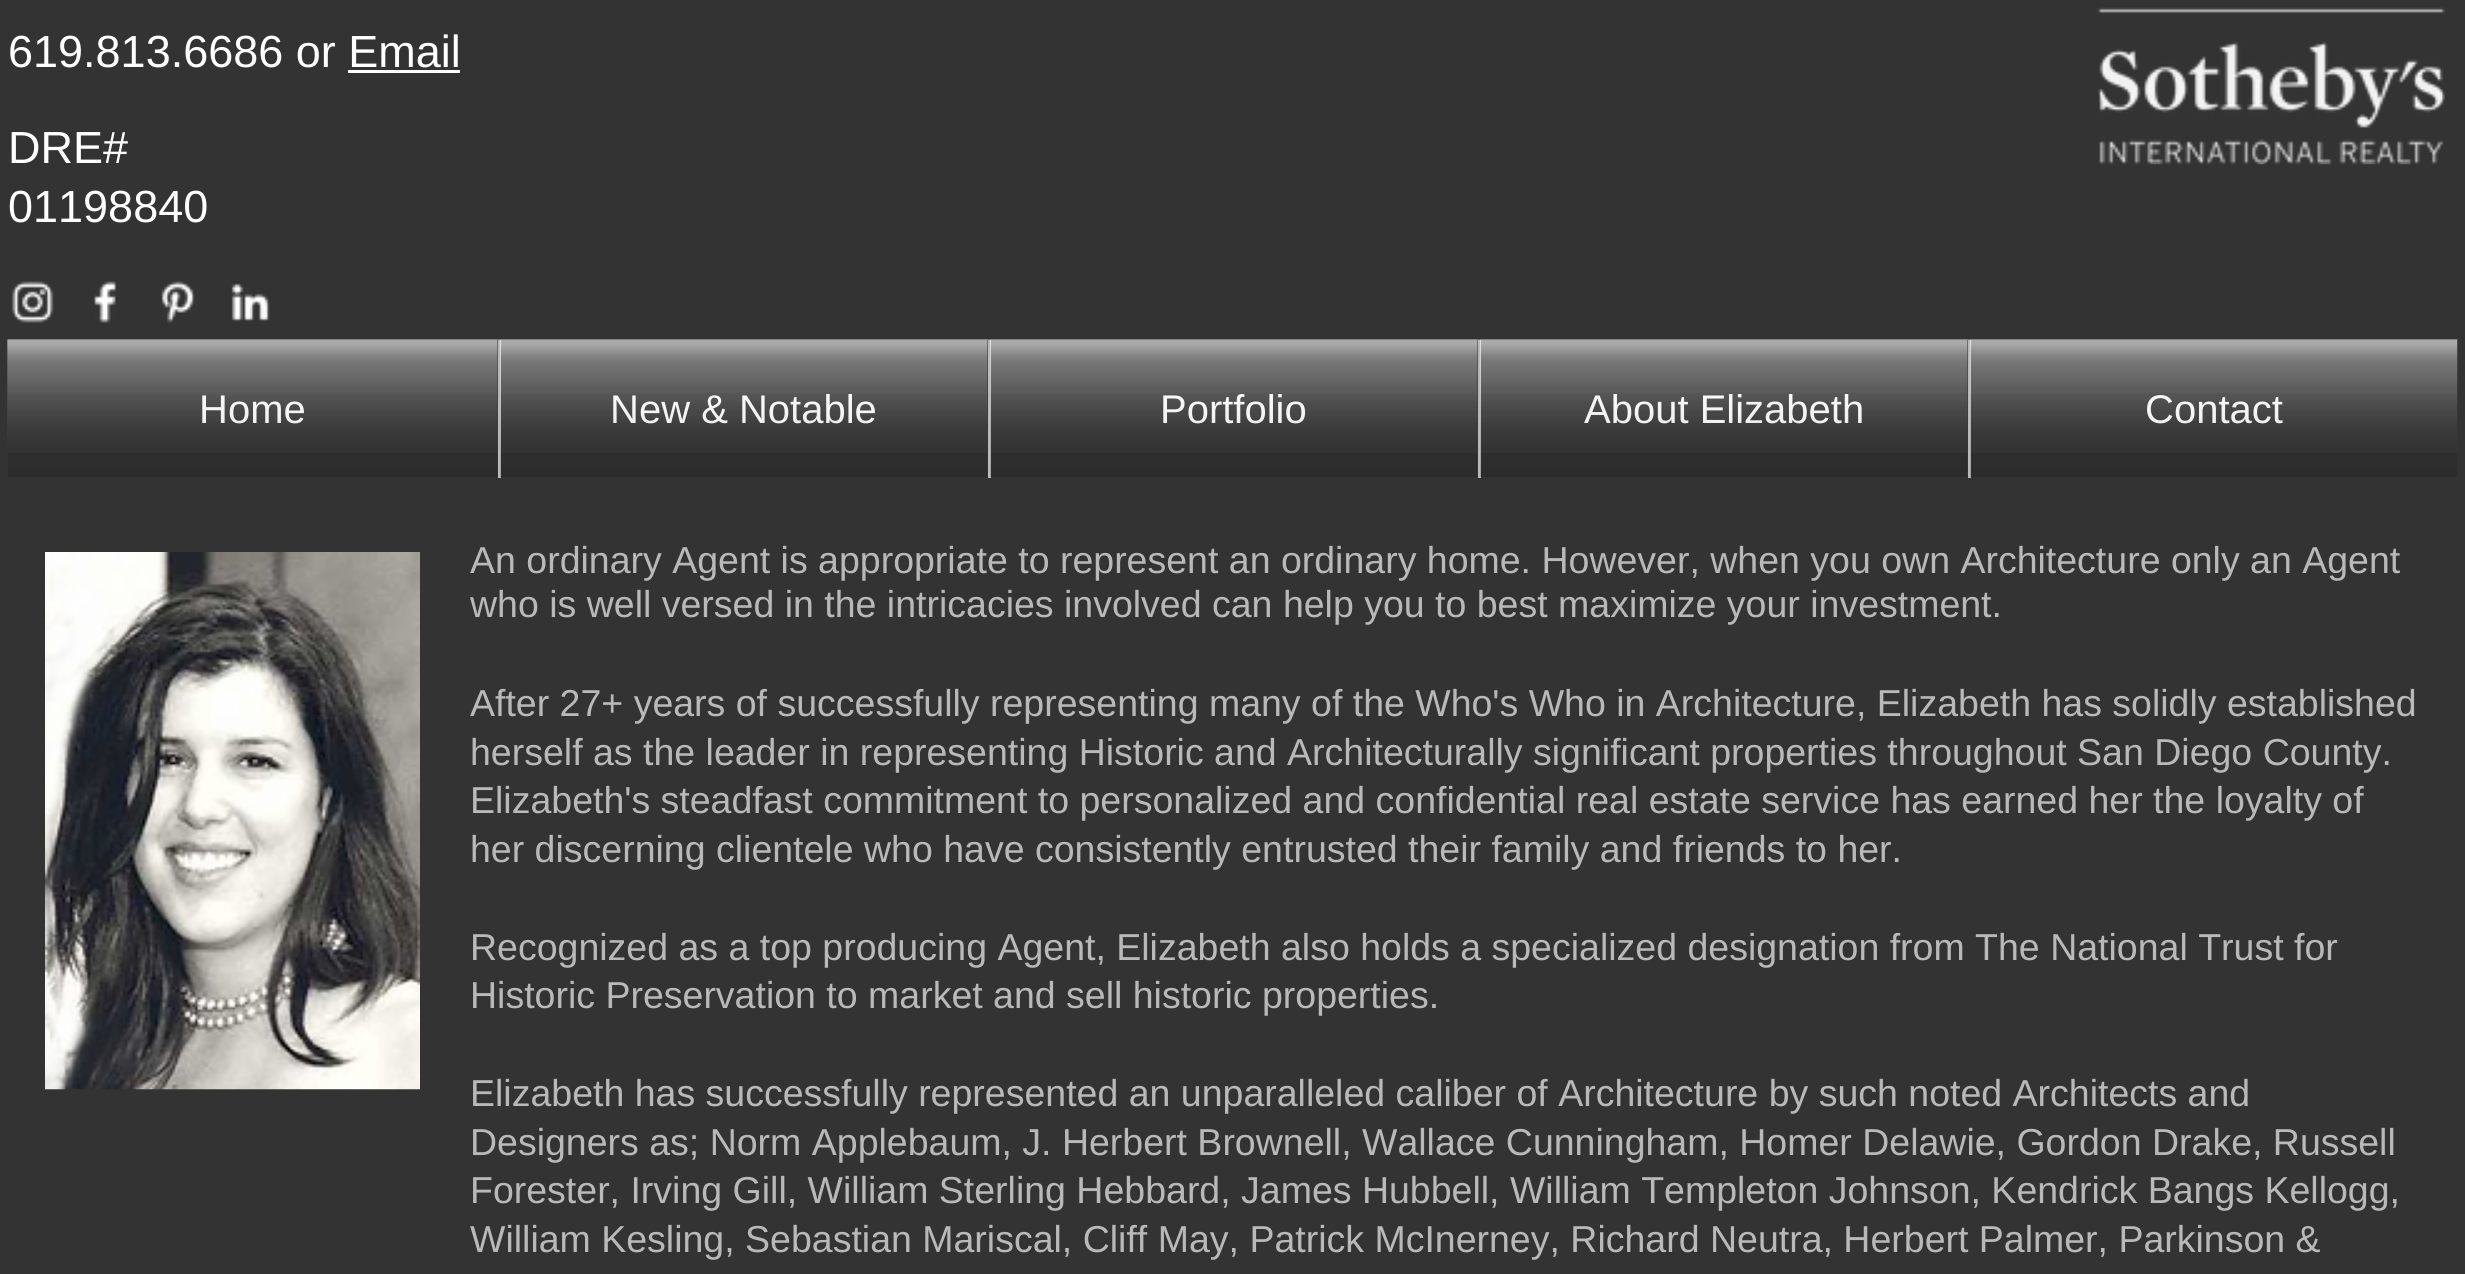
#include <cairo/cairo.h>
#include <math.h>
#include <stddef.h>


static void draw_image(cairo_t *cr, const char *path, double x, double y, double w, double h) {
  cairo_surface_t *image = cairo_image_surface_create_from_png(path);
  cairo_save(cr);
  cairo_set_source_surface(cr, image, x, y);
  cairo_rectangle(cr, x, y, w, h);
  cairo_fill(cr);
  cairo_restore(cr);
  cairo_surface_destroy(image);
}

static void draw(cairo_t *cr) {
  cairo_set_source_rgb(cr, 51 / 255.0, 51 / 255.0, 51 / 255.0);
  cairo_paint(cr);
  cairo_set_source_rgb(cr, 1, 1, 1);
  cairo_rectangle(cr, 348, 70, 112, 3);
  cairo_fill(cr);
  draw_image(cr, "images/1.png", 2097, 7, 348, 158);
  draw_image(cr, "images/2.png", 11, 281, 43, 42);
  draw_image(cr, "images/3.png", 94, 281, 23, 42);
  draw_image(cr, "images/4.png", 161, 281, 34, 42);
  draw_image(cr, "images/5.png", 231, 283, 39, 39);
  draw_image(cr, "images/6.png", 7, 339, 2451, 99);
  cairo_set_source_rgb(cr, 51 / 255.0, 51 / 255.0, 51 / 255.0);
  cairo_rectangle(cr, 8, 340, 490, 98);
  cairo_fill(cr);
  cairo_rectangle(cr, 501, 340, 487, 98);
  cairo_fill(cr);
  cairo_set_source_rgb(cr, 185 / 255.0, 185 / 255.0, 185 / 255.0);
  cairo_rectangle(cr, 498, 340, 3, 138);
  cairo_fill(cr);
  cairo_set_source_rgb(cr, 51 / 255.0, 51 / 255.0, 51 / 255.0);
  cairo_rectangle(cr, 991, 340, 487, 98);
  cairo_fill(cr);
  cairo_set_source_rgb(cr, 185 / 255.0, 185 / 255.0, 185 / 255.0);
  cairo_rectangle(cr, 988, 340, 3, 138);
  cairo_fill(cr);
  cairo_set_source_rgb(cr, 51 / 255.0, 51 / 255.0, 51 / 255.0);
  cairo_rectangle(cr, 1481, 340, 487, 98);
  cairo_fill(cr);
  cairo_set_source_rgb(cr, 185 / 255.0, 185 / 255.0, 185 / 255.0);
  cairo_rectangle(cr, 1478, 340, 3, 138);
  cairo_fill(cr);
  cairo_set_source_rgb(cr, 51 / 255.0, 51 / 255.0, 51 / 255.0);
  cairo_rectangle(cr, 1971, 340, 487, 98);
  cairo_fill(cr);
  cairo_set_source_rgb(cr, 185 / 255.0, 185 / 255.0, 185 / 255.0);
  cairo_rectangle(cr, 1968, 340, 3, 138);
  cairo_fill(cr);
  draw_image(cr, "images/17.png", 45, 552, 375, 538);
  cairo_select_font_face(cr, "Liberation Sans", CAIRO_FONT_SLANT_NORMAL, CAIRO_FONT_WEIGHT_NORMAL);
  cairo_set_font_size(cr, 45);
  cairo_set_source_rgb(cr, 1, 1, 1);
  cairo_move_to(cr, 8, 67);
  cairo_show_text(cr, "619.813.6686 or Email");
  cairo_move_to(cr, 8, 163);
  cairo_show_text(cr, "DRE#");
  cairo_move_to(cr, 8, 222);
  cairo_show_text(cr, "01198840");
  cairo_set_font_size(cr, 40);
  cairo_move_to(cr, 199, 423);
  cairo_show_text(cr, "Home");
  draw_image(cr, "images/7.png", 7, 339, 491, 114);
  draw_image(cr, "images/8.png", 8, 395, 489, 82);
  cairo_move_to(cr, 610, 423);
  cairo_show_text(cr, "New & Notable");
  draw_image(cr, "images/9.png", 500, 339, 488, 114);
  draw_image(cr, "images/10.png", 500, 393, 487, 84);
  cairo_move_to(cr, 1160, 423);
  cairo_show_text(cr, "Portfolio");
  draw_image(cr, "images/11.png", 990, 339, 488, 114);
  draw_image(cr, "images/12.png", 990, 393, 487, 84);
  cairo_move_to(cr, 1584, 423);
  cairo_show_text(cr, "About Elizabeth");
  draw_image(cr, "images/13.png", 1480, 339, 488, 114);
  draw_image(cr, "images/14.png", 1480, 393, 487, 84);
  cairo_move_to(cr, 2145, 423);
  cairo_show_text(cr, "Contact");
  draw_image(cr, "images/15.png", 1970, 339, 488, 114);
  draw_image(cr, "images/16.png", 1970, 393, 487, 84);
  cairo_set_font_size(cr, 37.5);
  cairo_set_source_rgb(cr, 185 / 255.0, 185 / 255.0, 185 / 255.0);
  cairo_move_to(cr, 470, 573);
  cairo_show_text(cr, "An ordinary Agent is appropriate to represent an ordinary home. However, when you own Architecture only an Agent");
  cairo_move_to(cr, 470, 617);
  cairo_show_text(cr, "who is well versed in the intricacies involved can help you to best maximize your investment.");
  cairo_move_to(cr, 470, 716);
  cairo_show_text(cr, "After 27+ years of successfully representing many of the Who's Who in Architecture, Elizabeth has solidly established");
  cairo_move_to(cr, 470, 765);
  cairo_show_text(cr, "herself as the leader in representing Historic and Architecturally significant properties throughout San Diego County.");
  cairo_move_to(cr, 470, 813);
  cairo_show_text(cr, "Elizabeth's steadfast commitment to personalized and confidential real estate service has earned her the loyalty of");
  cairo_move_to(cr, 470, 862);
  cairo_show_text(cr, "her discerning clientele who have consistently entrusted their family and friends to her.");
  cairo_move_to(cr, 470, 960);
  cairo_show_text(cr, "Recognized as a top producing Agent, Elizabeth also holds a specialized designation from The National Trust for");
  cairo_move_to(cr, 470, 1008);
  cairo_show_text(cr, "Historic Preservation to market and sell historic properties.");
  cairo_move_to(cr, 470, 1106);
  cairo_show_text(cr, "Elizabeth has successfully represented an unparalleled caliber of Architecture by such noted Architects and");
  cairo_move_to(cr, 470, 1155);
  cairo_show_text(cr, "Designers as; Norm Applebaum, J. Herbert Brownell, Wallace Cunningham, Homer Delawie, Gordon Drake, Russell");
  cairo_move_to(cr, 470, 1203);
  cairo_show_text(cr, "Forester, Irving Gill, William Sterling Hebbard, James Hubbell, William Templeton Johnson, Kendrick Bangs Kellogg,");
  cairo_move_to(cr, 470, 1252);
  cairo_show_text(cr, "William Kesling, Sebastian Mariscal, Cliff May, Patrick McInerney, Richard Neutra, Herbert Palmer, Parkinson &");
}

int main(void) {
  cairo_surface_t *surface = cairo_image_surface_create(CAIRO_FORMAT_RGB24, 2465, 1274);
  cairo_t *cr = cairo_create(surface);
  cairo_font_options_t *options = cairo_font_options_create();
  cairo_font_options_set_hint_metrics(options, CAIRO_HINT_METRICS_OFF);
  cairo_font_options_set_hint_style(options, CAIRO_HINT_STYLE_NONE);
  cairo_set_font_options(cr, options);
  cairo_set_miter_limit(cr, 4);
  draw(cr);
  cairo_surface_write_to_png(surface, "out.png");
  cairo_font_options_destroy(options);
  cairo_destroy(cr);
  cairo_surface_destroy(surface);
  return 0;
}
